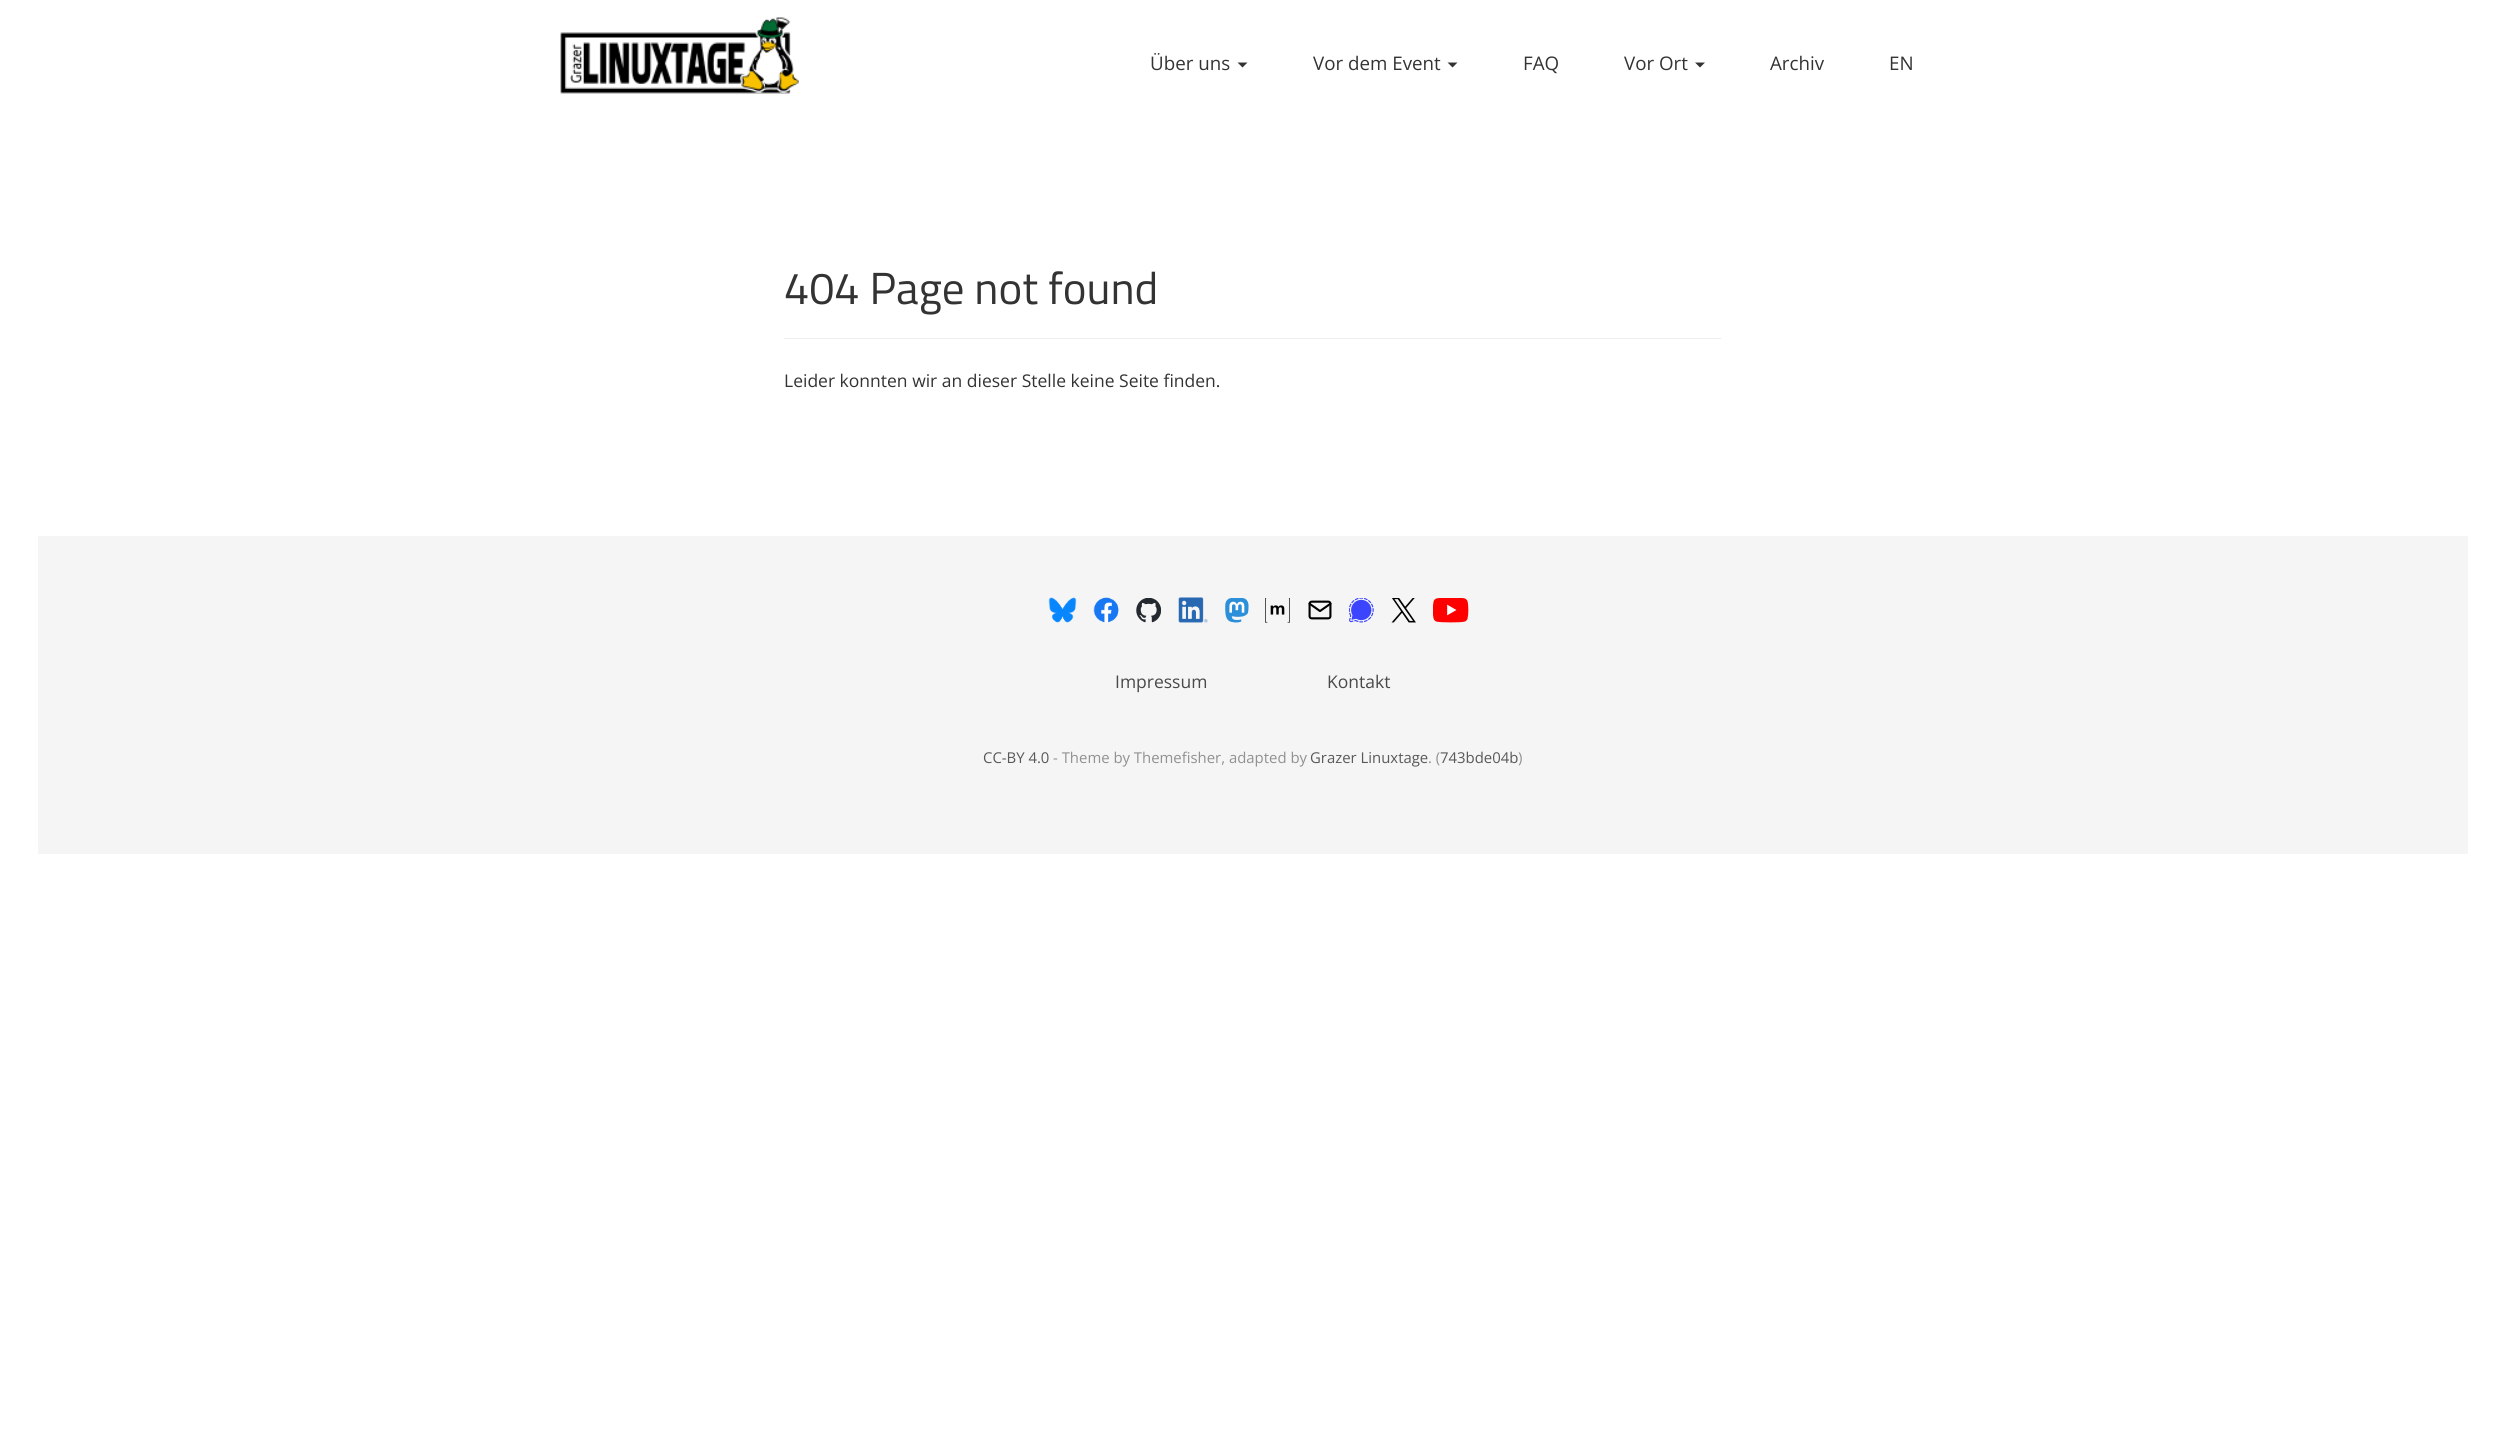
#include <cairo/cairo.h>
#include <math.h>
#include <stddef.h>


static void draw_image(cairo_t *cr, const char *path, double x, double y, double w, double h) {
  cairo_surface_t *image = cairo_image_surface_create_from_png(path);
  cairo_save(cr);
  cairo_set_source_surface(cr, image, x, y);
  cairo_rectangle(cr, x, y, w, h);
  cairo_fill(cr);
  cairo_restore(cr);
  cairo_surface_destroy(image);
}

static void draw(cairo_t *cr) {
  cairo_set_source_rgb(cr, 1, 1, 1);
  cairo_paint(cr);
  draw_image(cr, "images/1.png", 560, 17, 239, 77);
  cairo_set_source_rgb(cr, 51 / 255.0, 51 / 255.0, 51 / 255.0);
  cairo_new_path(cr);
  cairo_move_to(cr, 1237.5, 62.5);
  cairo_line_to(cr, 1247.5, 62.5);
  cairo_line_to(cr, 1242.5, 67.5);
  cairo_close_path(cr);
  cairo_fill(cr);
  cairo_new_path(cr);
  cairo_move_to(cr, 1447.5, 62.5);
  cairo_line_to(cr, 1457.5, 62.5);
  cairo_line_to(cr, 1452.5, 67.5);
  cairo_close_path(cr);
  cairo_fill(cr);
  cairo_new_path(cr);
  cairo_move_to(cr, 1695, 62.5);
  cairo_line_to(cr, 1705, 62.5);
  cairo_line_to(cr, 1700, 67.5);
  cairo_close_path(cr);
  cairo_fill(cr);
  cairo_set_source_rgb(cr, 238 / 255.0, 238 / 255.0, 238 / 255.0);
  cairo_rectangle(cr, 784, 338, 937, 1);
  cairo_fill(cr);
  cairo_set_source_rgb(cr, 245 / 255.0, 245 / 255.0, 245 / 255.0);
  cairo_rectangle(cr, 38, 536, 2430, 318);
  cairo_fill(cr);
  draw_image(cr, "images/2.png", 1048, 597, 29, 26);
  draw_image(cr, "images/3.png", 1093, 597, 26, 26);
  draw_image(cr, "images/4.png", 1136, 598, 25, 25);
  draw_image(cr, "images/5.png", 1178, 597, 30, 26);
  draw_image(cr, "images/6.png", 1225, 598, 24, 25);
  draw_image(cr, "images/7.png", 1265, 598, 25, 25);
  draw_image(cr, "images/8.png", 1308, 600, 24, 20);
  draw_image(cr, "images/9.png", 1349, 598, 25, 25);
  draw_image(cr, "images/10.png", 1391, 598, 25, 25);
  draw_image(cr, "images/11.png", 1433, 598, 36, 25);
  cairo_select_font_face(cr, "Open Sans", CAIRO_FONT_SLANT_NORMAL, CAIRO_FONT_WEIGHT_NORMAL);
  cairo_set_font_size(cr, 18.75);
  cairo_set_source_rgb(cr, 51 / 255.0, 51 / 255.0, 51 / 255.0);
  cairo_move_to(cr, 1150, 70);
  cairo_show_text(cr, "Über uns");
  cairo_move_to(cr, 1313, 70);
  cairo_show_text(cr, "Vor dem Event");
  cairo_move_to(cr, 1523, 70);
  cairo_show_text(cr, "FAQ");
  cairo_move_to(cr, 1624, 70);
  cairo_show_text(cr, "Vor Ort");
  cairo_move_to(cr, 1770, 70);
  cairo_show_text(cr, "Archiv");
  cairo_move_to(cr, 1889, 70);
  cairo_show_text(cr, "EN");
  cairo_select_font_face(cr, "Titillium", CAIRO_FONT_SLANT_NORMAL, CAIRO_FONT_WEIGHT_NORMAL);
  cairo_set_font_size(cr, 45);
  cairo_move_to(cr, 784, 304);
  cairo_show_text(cr, "404 Page not found");
  cairo_select_font_face(cr, "Open Sans", CAIRO_FONT_SLANT_NORMAL, CAIRO_FONT_WEIGHT_NORMAL);
  cairo_set_font_size(cr, 17.5);
  cairo_move_to(cr, 784, 387);
  cairo_show_text(cr, "Leider konnten wir an dieser Stelle keine Seite finden.");
  cairo_set_source_rgb(cr, 73 / 255.0, 73 / 255.0, 73 / 255.0);
  cairo_move_to(cr, 1115, 688);
  cairo_show_text(cr, "Impressum");
  cairo_move_to(cr, 1327, 688);
  cairo_show_text(cr, "Kontakt");
  cairo_set_font_size(cr, 14.9);
  cairo_set_source_rgb(cr, 89 / 255.0, 89 / 255.0, 89 / 255.0);
  cairo_move_to(cr, 983, 763);
  cairo_show_text(cr, "CC-BY 4.0");
  cairo_set_source_rgb(cr, 145 / 255.0, 145 / 255.0, 145 / 255.0);
  cairo_move_to(cr, 1053, 763);
  cairo_show_text(cr, "- Theme by Themefisher, adapted by");
  cairo_set_source_rgb(cr, 89 / 255.0, 89 / 255.0, 89 / 255.0);
  cairo_move_to(cr, 1310, 763);
  cairo_show_text(cr, "Grazer Linuxtage");
  cairo_set_source_rgb(cr, 145 / 255.0, 145 / 255.0, 145 / 255.0);
  cairo_move_to(cr, 1428, 763);
  cairo_show_text(cr, ". (");
  cairo_set_source_rgb(cr, 89 / 255.0, 89 / 255.0, 89 / 255.0);
  cairo_move_to(cr, 1440, 763);
  cairo_show_text(cr, "743bde04b");
  cairo_set_source_rgb(cr, 145 / 255.0, 145 / 255.0, 145 / 255.0);
  cairo_move_to(cr, 1518, 763);
  cairo_show_text(cr, ")");
}

int main(void) {
  cairo_surface_t *surface = cairo_image_surface_create(CAIRO_FORMAT_RGB24, 2504, 1454);
  cairo_t *cr = cairo_create(surface);
  cairo_font_options_t *options = cairo_font_options_create();
  cairo_font_options_set_hint_metrics(options, CAIRO_HINT_METRICS_OFF);
  cairo_font_options_set_hint_style(options, CAIRO_HINT_STYLE_NONE);
  cairo_set_font_options(cr, options);
  cairo_set_miter_limit(cr, 4);
  draw(cr);
  cairo_surface_write_to_png(surface, "out.png");
  cairo_font_options_destroy(options);
  cairo_destroy(cr);
  cairo_surface_destroy(surface);
  return 0;
}
